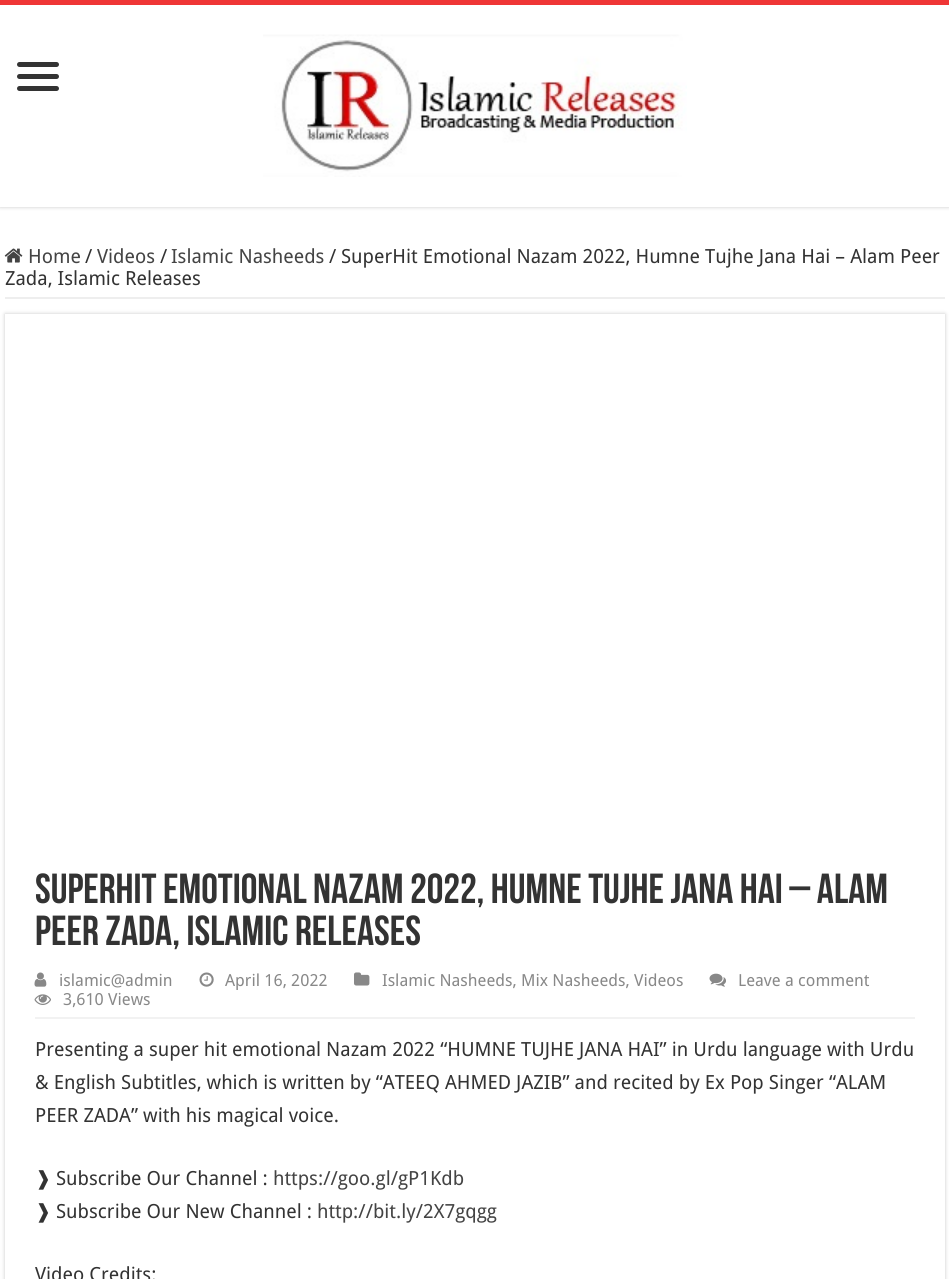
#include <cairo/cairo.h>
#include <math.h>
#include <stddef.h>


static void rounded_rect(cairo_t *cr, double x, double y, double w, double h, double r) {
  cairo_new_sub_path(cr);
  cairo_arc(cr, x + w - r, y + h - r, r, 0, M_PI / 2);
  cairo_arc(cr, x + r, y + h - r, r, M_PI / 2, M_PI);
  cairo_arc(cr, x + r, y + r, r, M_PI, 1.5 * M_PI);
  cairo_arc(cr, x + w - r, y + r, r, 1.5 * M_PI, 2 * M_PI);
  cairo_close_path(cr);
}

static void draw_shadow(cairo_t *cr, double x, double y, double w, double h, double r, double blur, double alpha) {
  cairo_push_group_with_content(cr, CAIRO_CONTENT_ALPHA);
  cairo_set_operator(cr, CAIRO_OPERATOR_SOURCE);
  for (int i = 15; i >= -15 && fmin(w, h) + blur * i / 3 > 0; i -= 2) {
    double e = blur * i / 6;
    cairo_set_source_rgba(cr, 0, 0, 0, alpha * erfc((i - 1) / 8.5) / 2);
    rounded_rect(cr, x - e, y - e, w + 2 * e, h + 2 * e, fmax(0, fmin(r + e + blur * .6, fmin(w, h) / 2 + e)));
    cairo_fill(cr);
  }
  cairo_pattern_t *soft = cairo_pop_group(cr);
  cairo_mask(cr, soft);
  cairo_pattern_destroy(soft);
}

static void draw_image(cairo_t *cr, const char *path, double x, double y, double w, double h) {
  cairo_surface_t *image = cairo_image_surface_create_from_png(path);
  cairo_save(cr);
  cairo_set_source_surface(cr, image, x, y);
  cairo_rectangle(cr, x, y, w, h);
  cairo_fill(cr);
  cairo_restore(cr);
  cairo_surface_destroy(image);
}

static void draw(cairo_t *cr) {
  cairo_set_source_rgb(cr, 1, 1, 1);
  cairo_paint(cr);
  cairo_save(cr);
  cairo_rectangle(cr, 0, 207, 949, 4);
  cairo_clip(cr);
  cairo_set_source_rgb(cr, 202 / 255.0, 202 / 255.0, 202 / 255.0);
  draw_shadow(cr, 0, 0, 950, 207, 0, 2, 1);
  cairo_restore(cr);
  cairo_set_source_rgb(cr, 239 / 255.0, 54 / 255.0, 54 / 255.0);
  cairo_rectangle(cr, 0, 0, 949, 5);
  cairo_fill(cr);
  cairo_set_source_rgb(cr, 51 / 255.0, 51 / 255.0, 51 / 255.0);
  rounded_rect(cr, 17, 62, 42, 5, 2.5);
  cairo_fill(cr);
  rounded_rect(cr, 17, 74, 42, 5, 2.5);
  cairo_fill(cr);
  rounded_rect(cr, 17, 86, 42, 5, 2.5);
  cairo_fill(cr);
  draw_image(cr, "images/1.png", 263, 34, 424, 143);
  cairo_set_source_rgb(cr, 238 / 255.0, 238 / 255.0, 238 / 255.0);
  cairo_rectangle(cr, 5, 297, 940, 2);
  cairo_fill(cr);
  draw_image(cr, "images/2.png", 4, 248, 19, 15);
  cairo_save(cr);
  cairo_set_fill_rule(cr, CAIRO_FILL_RULE_EVEN_ODD);
  cairo_new_path(cr);
  cairo_move_to(cr, 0, 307);
  cairo_line_to(cr, 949, 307);
  cairo_line_to(cr, 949, 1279);
  cairo_line_to(cr, 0, 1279);
  cairo_close_path(cr);
  cairo_move_to(cr, 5, 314);
  cairo_line_to(cr, 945, 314);
  cairo_line_to(cr, 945, 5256);
  cairo_line_to(cr, 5, 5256);
  cairo_close_path(cr);
  cairo_clip(cr);
  cairo_set_source_rgb(cr, 202 / 255.0, 202 / 255.0, 202 / 255.0);
  draw_shadow(cr, 5, 314, 940, 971, 0, 2, 1);
  cairo_restore(cr);
  cairo_set_source_rgb(cr, 242 / 255.0, 242 / 255.0, 242 / 255.0);
  cairo_rectangle(cr, 35, 1017, 880, 2);
  cairo_fill(cr);
  draw_image(cr, "images/3.png", 34, 972, 13, 15);
  draw_image(cr, "images/4.png", 199, 972, 15, 15);
  draw_image(cr, "images/5.png", 354, 972, 16, 14);
  draw_image(cr, "images/6.png", 709, 973, 17, 14);
  draw_image(cr, "images/7.png", 34, 994, 17, 11);
  cairo_select_font_face(cr, "Droid Sans", CAIRO_FONT_SLANT_NORMAL, CAIRO_FONT_WEIGHT_NORMAL);
  cairo_set_font_size(cr, 19.5);
  cairo_set_source_rgb(cr, 68 / 255.0, 68 / 255.0, 68 / 255.0);
  cairo_move_to(cr, 28, 263);
  cairo_show_text(cr, "Home");
  cairo_set_source_rgb(cr, 51 / 255.0, 51 / 255.0, 51 / 255.0);
  cairo_move_to(cr, 85, 263);
  cairo_show_text(cr, "/");
  cairo_set_source_rgb(cr, 68 / 255.0, 68 / 255.0, 68 / 255.0);
  cairo_move_to(cr, 97, 263);
  cairo_show_text(cr, "Videos");
  cairo_set_source_rgb(cr, 51 / 255.0, 51 / 255.0, 51 / 255.0);
  cairo_move_to(cr, 160, 263);
  cairo_show_text(cr, "/");
  cairo_set_source_rgb(cr, 68 / 255.0, 68 / 255.0, 68 / 255.0);
  cairo_move_to(cr, 171, 263);
  cairo_show_text(cr, "Islamic Nasheeds");
  cairo_set_source_rgb(cr, 51 / 255.0, 51 / 255.0, 51 / 255.0);
  cairo_move_to(cr, 329, 263);
  cairo_show_text(cr, "/");
  cairo_move_to(cr, 341, 263);
  cairo_show_text(cr, "SuperHit Emotional Nazam 2022, Humne Tujhe Jana Hai – Alam Peer");
  cairo_move_to(cr, 5, 285);
  cairo_show_text(cr, "Zada, Islamic Releases");
  cairo_select_font_face(cr, "Bebas Neue", CAIRO_FONT_SLANT_NORMAL, CAIRO_FONT_WEIGHT_BOLD);
  cairo_set_font_size(cr, 42);
  cairo_move_to(cr, 35, 903);
  cairo_show_text(cr, "SuperHit Emotional Nazam 2022, Humne Tujhe Jana Hai – Alam");
  cairo_move_to(cr, 35, 945);
  cairo_show_text(cr, "Peer Zada, Islamic Releases");
  cairo_select_font_face(cr, "Droid Sans", CAIRO_FONT_SLANT_NORMAL, CAIRO_FONT_WEIGHT_NORMAL);
  cairo_set_font_size(cr, 16.6);
  cairo_set_source_rgb(cr, 136 / 255.0, 136 / 255.0, 136 / 255.0);
  cairo_move_to(cr, 59, 986);
  cairo_show_text(cr, "islamic@admin");
  cairo_move_to(cr, 225, 986);
  cairo_show_text(cr, "April 16, 2022");
  cairo_move_to(cr, 382, 986);
  cairo_show_text(cr, "Islamic Nasheeds, Mix Nasheeds, Videos");
  cairo_move_to(cr, 738, 986);
  cairo_show_text(cr, "Leave a comment");
  cairo_move_to(cr, 63, 1005);
  cairo_show_text(cr, "3,610 Views");
  cairo_set_font_size(cr, 19.5);
  cairo_set_source_rgb(cr, 51 / 255.0, 51 / 255.0, 51 / 255.0);
  cairo_move_to(cr, 35, 1056);
  cairo_show_text(cr, "Presenting a super hit emotional Nazam 2022 “HUMNE TUJHE JANA HAI” in Urdu language with Urdu");
  cairo_move_to(cr, 35, 1089);
  cairo_show_text(cr, "& English Subtitles, which is written by “ATEEQ AHMED JAZIB” and recited by Ex Pop Singer “ALAM");
  cairo_move_to(cr, 35, 1122);
  cairo_show_text(cr, "PEER ZADA” with his magical voice.");
  cairo_select_font_face(cr, "DejaVu Sans", CAIRO_FONT_SLANT_NORMAL, CAIRO_FONT_WEIGHT_NORMAL);
  cairo_move_to(cr, 35, 1185);
  cairo_show_text(cr, "❱");
  cairo_select_font_face(cr, "Droid Sans", CAIRO_FONT_SLANT_NORMAL, CAIRO_FONT_WEIGHT_NORMAL);
  cairo_move_to(cr, 56, 1185);
  cairo_show_text(cr, "Subscribe Our Channel :");
  cairo_set_source_rgb(cr, 68 / 255.0, 68 / 255.0, 68 / 255.0);
  cairo_move_to(cr, 273, 1185);
  cairo_show_text(cr, "https://goo.gl/gP1Kdb");
  cairo_select_font_face(cr, "DejaVu Sans", CAIRO_FONT_SLANT_NORMAL, CAIRO_FONT_WEIGHT_NORMAL);
  cairo_set_source_rgb(cr, 51 / 255.0, 51 / 255.0, 51 / 255.0);
  cairo_move_to(cr, 35, 1218);
  cairo_show_text(cr, "❱");
  cairo_select_font_face(cr, "Droid Sans", CAIRO_FONT_SLANT_NORMAL, CAIRO_FONT_WEIGHT_NORMAL);
  cairo_move_to(cr, 56, 1218);
  cairo_show_text(cr, "Subscribe Our New Channel :");
  cairo_set_source_rgb(cr, 68 / 255.0, 68 / 255.0, 68 / 255.0);
  cairo_move_to(cr, 317, 1218);
  cairo_show_text(cr, "http://bit.ly/2X7gqgg");
  cairo_set_source_rgb(cr, 51 / 255.0, 51 / 255.0, 51 / 255.0);
  cairo_move_to(cr, 35, 1281);
  cairo_show_text(cr, "Video Credits:");
}

int main(void) {
  cairo_surface_t *surface = cairo_image_surface_create(CAIRO_FORMAT_RGB24, 949, 1279);
  cairo_t *cr = cairo_create(surface);
  cairo_font_options_t *options = cairo_font_options_create();
  cairo_font_options_set_hint_metrics(options, CAIRO_HINT_METRICS_OFF);
  cairo_font_options_set_hint_style(options, CAIRO_HINT_STYLE_NONE);
  cairo_set_font_options(cr, options);
  cairo_set_miter_limit(cr, 4);
  draw(cr);
  cairo_surface_write_to_png(surface, "out.png");
  cairo_font_options_destroy(options);
  cairo_destroy(cr);
  cairo_surface_destroy(surface);
  return 0;
}
